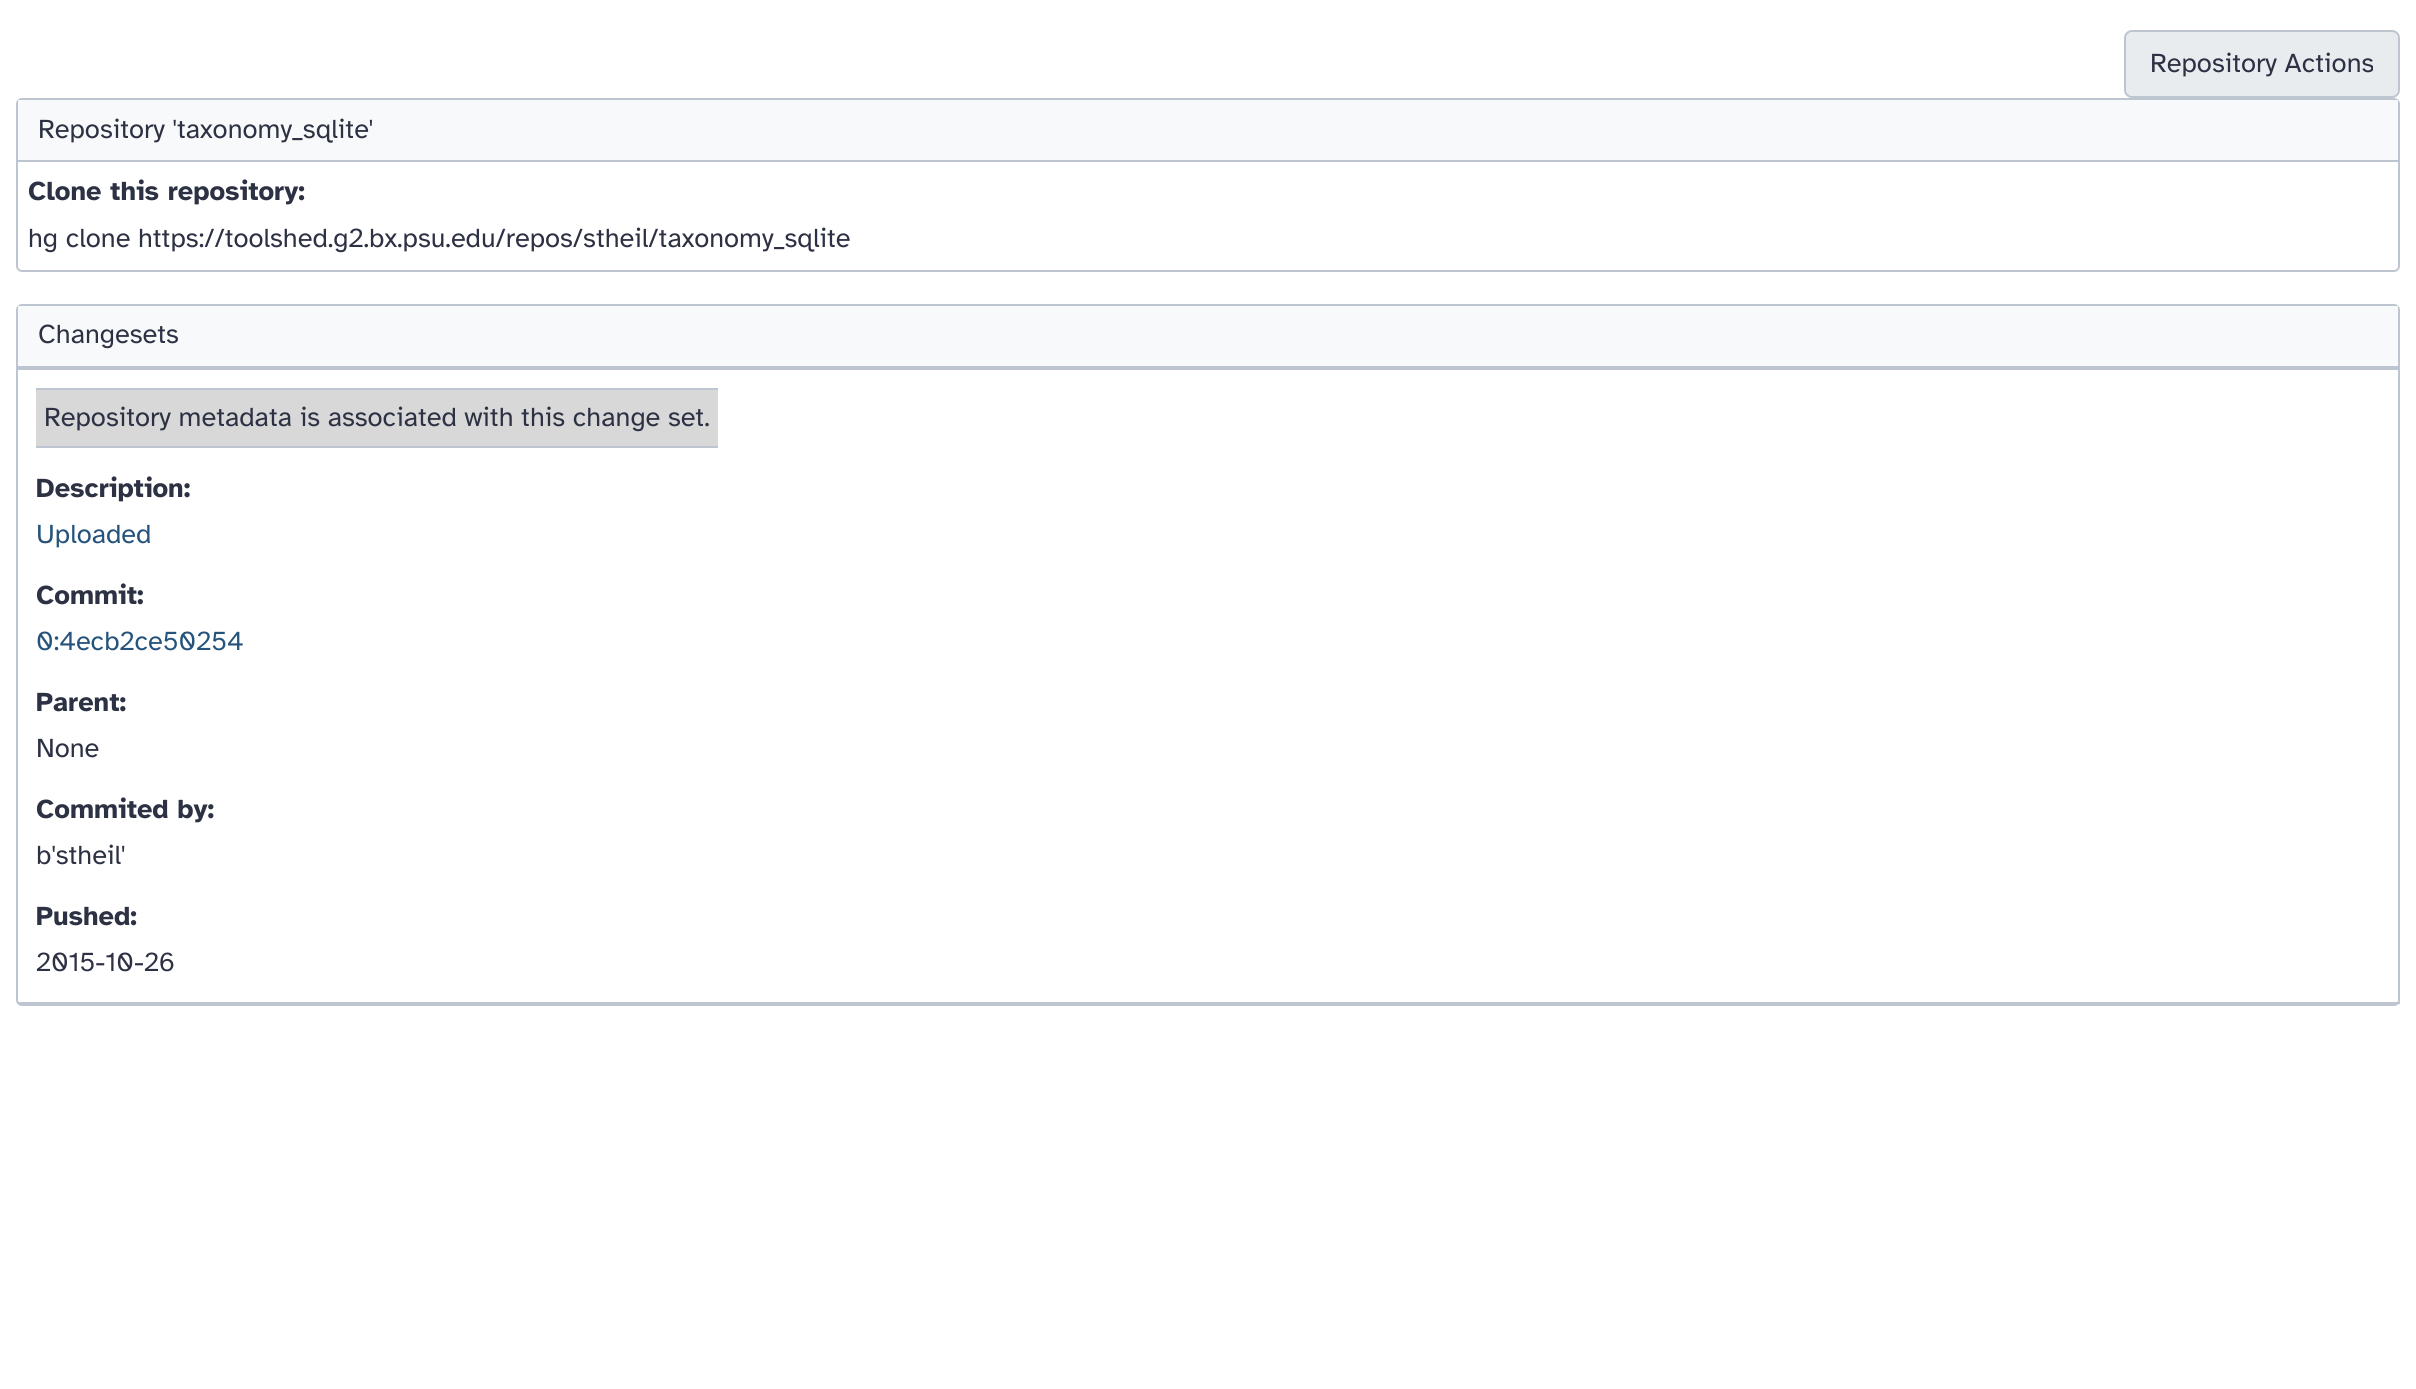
#include <cairo/cairo.h>
#include <math.h>
#include <stddef.h>


static void rounded_rect(cairo_t *cr, double x, double y, double w, double h, double r) {
  cairo_new_sub_path(cr);
  cairo_arc(cr, x + w - r, y + h - r, r, 0, M_PI / 2);
  cairo_arc(cr, x + r, y + h - r, r, M_PI / 2, M_PI);
  cairo_arc(cr, x + r, y + r, r, M_PI, 1.5 * M_PI);
  cairo_arc(cr, x + w - r, y + r, r, 1.5 * M_PI, 2 * M_PI);
  cairo_close_path(cr);
}

static void draw(cairo_t *cr) {
  cairo_set_source_rgb(cr, 1, 1, 1);
  cairo_paint(cr);
  cairo_set_source_rgb(cr, 233 / 255.0, 236 / 255.0, 239 / 255.0);
  rounded_rect(cr, 2125, 31, 274, 66, 7);
  cairo_fill_preserve(cr);
  cairo_set_source_rgb(cr, 189 / 255.0, 198 / 255.0, 208 / 255.0);
  cairo_stroke(cr);
  rounded_rect(cr, 17, 99, 2382, 172, 5);
  cairo_stroke(cr);
  cairo_set_source_rgb(cr, 248 / 255.0, 249 / 255.0, 250 / 255.0);
  cairo_rectangle(cr, 18, 100, 2380, 60);
  cairo_fill(cr);
  cairo_set_source_rgb(cr, 189 / 255.0, 198 / 255.0, 208 / 255.0);
  cairo_rectangle(cr, 18, 160, 2380, 2);
  cairo_fill(cr);
  rounded_rect(cr, 17, 305, 2382, 700, 5);
  cairo_stroke(cr);
  cairo_set_source_rgb(cr, 248 / 255.0, 249 / 255.0, 250 / 255.0);
  cairo_rectangle(cr, 18, 306, 2380, 60);
  cairo_fill(cr);
  cairo_set_source_rgb(cr, 189 / 255.0, 198 / 255.0, 208 / 255.0);
  cairo_rectangle(cr, 18, 366, 2380, 2);
  cairo_fill(cr);
  cairo_rectangle(cr, 18, 368, 2382, 2);
  cairo_fill(cr);
  cairo_rectangle(cr, 18, 1002, 2382, 2);
  cairo_fill(cr);
  cairo_set_source_rgb(cr, 216 / 255.0, 216 / 255.0, 216 / 255.0);
  cairo_rectangle(cr, 36, 390, 682, 56);
  cairo_fill(cr);
  cairo_set_source_rgb(cr, 189 / 255.0, 198 / 255.0, 208 / 255.0);
  cairo_rectangle(cr, 36, 388, 682, 2);
  cairo_fill(cr);
  cairo_rectangle(cr, 36, 446, 682, 2);
  cairo_fill(cr);
  cairo_select_font_face(cr, "Atkinson Hyperlegible", CAIRO_FONT_SLANT_NORMAL, CAIRO_FONT_WEIGHT_NORMAL);
  cairo_set_font_size(cr, 27.2);
  cairo_set_source_rgb(cr, 44 / 255.0, 49 / 255.0, 67 / 255.0);
  cairo_move_to(cr, 2150, 72);
  cairo_show_text(cr, "Repository Actions");
  cairo_move_to(cr, 38, 138);
  cairo_show_text(cr, "Repository 'taxonomy_sqlite'");
  cairo_select_font_face(cr, "Atkinson Hyperlegible", CAIRO_FONT_SLANT_NORMAL, CAIRO_FONT_WEIGHT_BOLD);
  cairo_move_to(cr, 28, 200);
  cairo_show_text(cr, "Clone this repository:");
  cairo_select_font_face(cr, "Atkinson Hyperlegible", CAIRO_FONT_SLANT_NORMAL, CAIRO_FONT_WEIGHT_NORMAL);
  cairo_move_to(cr, 28, 247);
  cairo_show_text(cr, "hg clone https://toolshed.g2.bx.psu.edu/repos/stheil/taxonomy_sqlite");
  cairo_move_to(cr, 38, 343);
  cairo_show_text(cr, "Changesets");
  cairo_move_to(cr, 44, 426);
  cairo_show_text(cr, "Repository metadata is associated with this change set.");
  cairo_select_font_face(cr, "Atkinson Hyperlegible", CAIRO_FONT_SLANT_NORMAL, CAIRO_FONT_WEIGHT_BOLD);
  cairo_move_to(cr, 36, 497);
  cairo_show_text(cr, "Description:");
  cairo_select_font_face(cr, "Atkinson Hyperlegible", CAIRO_FONT_SLANT_NORMAL, CAIRO_FONT_WEIGHT_NORMAL);
  cairo_set_source_rgb(cr, 37 / 255.0, 83 / 255.0, 123 / 255.0);
  cairo_move_to(cr, 36, 543);
  cairo_show_text(cr, "Uploaded");
  cairo_select_font_face(cr, "Atkinson Hyperlegible", CAIRO_FONT_SLANT_NORMAL, CAIRO_FONT_WEIGHT_BOLD);
  cairo_set_source_rgb(cr, 44 / 255.0, 49 / 255.0, 67 / 255.0);
  cairo_move_to(cr, 36, 604);
  cairo_show_text(cr, "Commit:");
  cairo_select_font_face(cr, "Atkinson Hyperlegible", CAIRO_FONT_SLANT_NORMAL, CAIRO_FONT_WEIGHT_NORMAL);
  cairo_set_source_rgb(cr, 37 / 255.0, 83 / 255.0, 123 / 255.0);
  cairo_move_to(cr, 36, 650);
  cairo_show_text(cr, "0:4ecb2ce50254");
  cairo_select_font_face(cr, "Atkinson Hyperlegible", CAIRO_FONT_SLANT_NORMAL, CAIRO_FONT_WEIGHT_BOLD);
  cairo_set_source_rgb(cr, 44 / 255.0, 49 / 255.0, 67 / 255.0);
  cairo_move_to(cr, 36, 711);
  cairo_show_text(cr, "Parent:");
  cairo_select_font_face(cr, "Atkinson Hyperlegible", CAIRO_FONT_SLANT_NORMAL, CAIRO_FONT_WEIGHT_NORMAL);
  cairo_move_to(cr, 36, 757);
  cairo_show_text(cr, "None");
  cairo_select_font_face(cr, "Atkinson Hyperlegible", CAIRO_FONT_SLANT_NORMAL, CAIRO_FONT_WEIGHT_BOLD);
  cairo_move_to(cr, 36, 818);
  cairo_show_text(cr, "Commited by:");
  cairo_select_font_face(cr, "Atkinson Hyperlegible", CAIRO_FONT_SLANT_NORMAL, CAIRO_FONT_WEIGHT_NORMAL);
  cairo_move_to(cr, 36, 864);
  cairo_show_text(cr, "b'stheil'");
  cairo_select_font_face(cr, "Atkinson Hyperlegible", CAIRO_FONT_SLANT_NORMAL, CAIRO_FONT_WEIGHT_BOLD);
  cairo_move_to(cr, 36, 925);
  cairo_show_text(cr, "Pushed:");
  cairo_select_font_face(cr, "Atkinson Hyperlegible", CAIRO_FONT_SLANT_NORMAL, CAIRO_FONT_WEIGHT_NORMAL);
  cairo_move_to(cr, 36, 971);
  cairo_show_text(cr, "2015-10-26");
}

int main(void) {
  cairo_surface_t *surface = cairo_image_surface_create(CAIRO_FORMAT_RGB24, 2416, 1389);
  cairo_t *cr = cairo_create(surface);
  cairo_font_options_t *options = cairo_font_options_create();
  cairo_font_options_set_hint_metrics(options, CAIRO_HINT_METRICS_OFF);
  cairo_font_options_set_hint_style(options, CAIRO_HINT_STYLE_NONE);
  cairo_set_font_options(cr, options);
  cairo_set_miter_limit(cr, 4);
  draw(cr);
  cairo_surface_write_to_png(surface, "out.png");
  cairo_font_options_destroy(options);
  cairo_destroy(cr);
  cairo_surface_destroy(surface);
  return 0;
}
